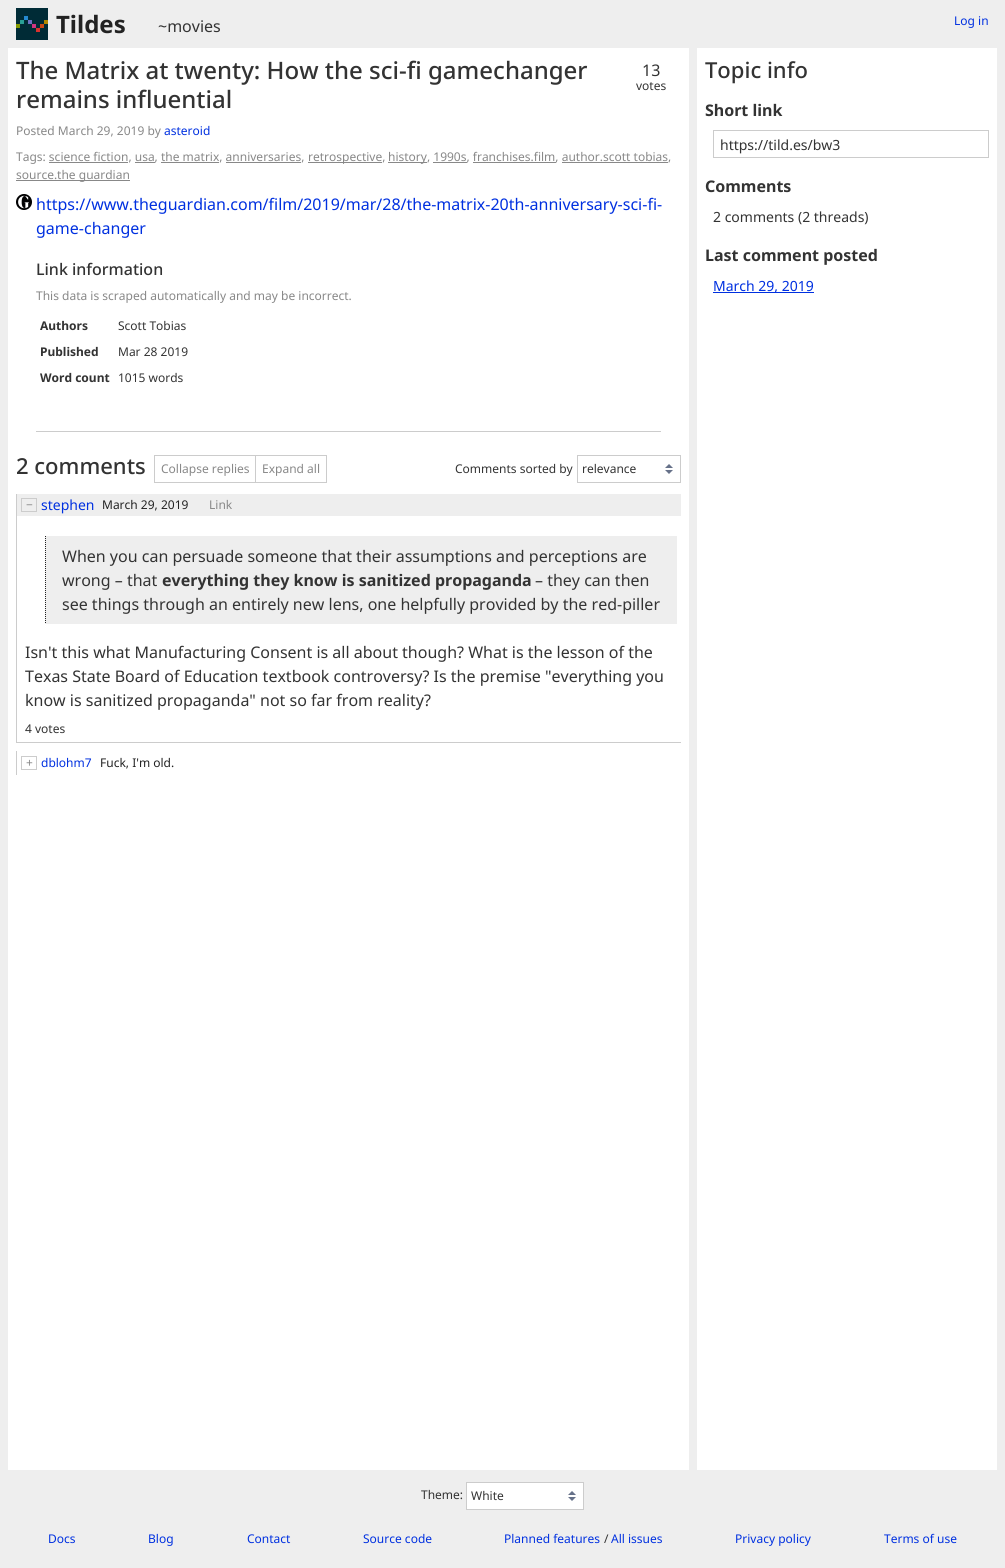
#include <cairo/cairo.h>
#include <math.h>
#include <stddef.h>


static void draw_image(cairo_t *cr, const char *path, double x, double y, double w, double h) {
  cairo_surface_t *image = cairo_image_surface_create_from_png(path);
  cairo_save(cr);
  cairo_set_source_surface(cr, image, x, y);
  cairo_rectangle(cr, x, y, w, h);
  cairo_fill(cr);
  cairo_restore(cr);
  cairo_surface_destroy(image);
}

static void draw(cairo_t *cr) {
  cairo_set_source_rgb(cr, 238 / 255.0, 238 / 255.0, 238 / 255.0);
  cairo_paint(cr);
  draw_image(cr, "images/1.png", 16, 8, 32, 32);
  cairo_set_source_rgb(cr, 1, 1, 1);
  cairo_rectangle(cr, 8, 48, 681, 1422);
  cairo_fill(cr);
  cairo_set_source_rgb(cr, 136 / 255.0, 136 / 255.0, 136 / 255.0);
  cairo_rectangle(cr, 308, 162, 74, 1);
  cairo_fill(cr);
  cairo_rectangle(cr, 388, 162, 39, 1);
  cairo_fill(cr);
  cairo_rectangle(cr, 49, 162, 79, 1);
  cairo_fill(cr);
  cairo_rectangle(cr, 135, 162, 20, 1);
  cairo_fill(cr);
  cairo_rectangle(cr, 161, 162, 58, 1);
  cairo_fill(cr);
  cairo_rectangle(cr, 226, 162, 75, 1);
  cairo_fill(cr);
  cairo_rectangle(cr, 433, 162, 34, 1);
  cairo_fill(cr);
  cairo_rectangle(cr, 473, 162, 83, 1);
  cairo_fill(cr);
  cairo_rectangle(cr, 562, 162, 106, 1);
  cairo_fill(cr);
  cairo_rectangle(cr, 16, 180, 114, 1);
  cairo_fill(cr);
  draw_image(cr, "images/2.png", 16, 194, 16, 16);
  cairo_set_source_rgb(cr, 204 / 255.0, 204 / 255.0, 204 / 255.0);
  cairo_rectangle(cr, 36, 431, 625, 1);
  cairo_fill(cr);
  cairo_rectangle(cr, 154.5, 455.5, 101, 27);
  cairo_set_line_width(cr, 1);
  cairo_stroke(cr);
  cairo_rectangle(cr, 255.5, 455.5, 71, 27);
  cairo_stroke(cr);
  draw_image(cr, "images/3.png", 665, 464, 8, 10);
  cairo_rectangle(cr, 577.5, 455.5, 103, 27);
  cairo_stroke(cr);
  cairo_rectangle(cr, 16, 742, 665, 1);
  cairo_fill(cr);
  cairo_rectangle(cr, 16, 494, 1, 249);
  cairo_fill(cr);
  cairo_set_source_rgb(cr, 238 / 255.0, 238 / 255.0, 238 / 255.0);
  cairo_rectangle(cr, 17, 494, 664, 22);
  cairo_fill(cr);
  cairo_rectangle(cr, 21.5, 498.5, 15, 13);
  cairo_set_source_rgb(cr, 204 / 255.0, 204 / 255.0, 204 / 255.0);
  cairo_stroke(cr);
  cairo_set_source_rgb(cr, 238 / 255.0, 238 / 255.0, 238 / 255.0);
  cairo_rectangle(cr, 45, 536, 632, 88);
  cairo_fill(cr);
  cairo_new_path(cr);
  cairo_move_to(cr, 45.5, 536);
  cairo_line_to(cr, 45.5, 624);
  cairo_set_source_rgb(cr, 34 / 255.0, 34 / 255.0, 34 / 255.0);
  cairo_set_dash(cr, (double[]){1, 1}, 2, 0);
  cairo_stroke(cr);
  cairo_set_source_rgb(cr, 204 / 255.0, 204 / 255.0, 204 / 255.0);
  cairo_rectangle(cr, 16, 751, 1, 24);
  cairo_fill(cr);
  cairo_rectangle(cr, 21.5, 756.5, 15, 13);
  cairo_set_dash(cr, NULL, 0, 0);
  cairo_stroke(cr);
  cairo_set_source_rgb(cr, 1, 1, 1);
  cairo_rectangle(cr, 697, 48, 300, 1422);
  cairo_fill(cr);
  cairo_rectangle(cr, 713.5, 130.5, 275, 27);
  cairo_set_source_rgb(cr, 204 / 255.0, 204 / 255.0, 204 / 255.0);
  cairo_stroke(cr);
  cairo_set_source_rgb(cr, 0, 48 / 255.0, 224 / 255.0);
  cairo_rectangle(cr, 713, 292, 101, 1);
  cairo_fill(cr);
  cairo_set_source_rgb(cr, 1, 1, 1);
  cairo_rectangle(cr, 467, 1483, 116, 26);
  cairo_fill(cr);
  draw_image(cr, "images/3.png", 568, 1491, 8, 10);
  cairo_rectangle(cr, 466.5, 1482.5, 117, 27);
  cairo_set_source_rgb(cr, 204 / 255.0, 204 / 255.0, 204 / 255.0);
  cairo_stroke(cr);
  cairo_select_font_face(cr, "Noto Sans", CAIRO_FONT_SLANT_NORMAL, CAIRO_FONT_WEIGHT_BOLD);
  cairo_set_font_size(cr, 24);
  cairo_set_source_rgb(cr, 34 / 255.0, 34 / 255.0, 34 / 255.0);
  cairo_move_to(cr, 56, 33);
  cairo_show_text(cr, "Tildes");
  cairo_select_font_face(cr, "Noto Sans", CAIRO_FONT_SLANT_NORMAL, CAIRO_FONT_WEIGHT_NORMAL);
  cairo_set_font_size(cr, 16);
  cairo_set_source_rgb(cr, 51 / 255.0, 51 / 255.0, 51 / 255.0);
  cairo_move_to(cr, 158, 32);
  cairo_show_text(cr, "~movies");
  cairo_set_font_size(cr, 12);
  cairo_set_source_rgb(cr, 0, 48 / 255.0, 224 / 255.0);
  cairo_move_to(cr, 954, 25);
  cairo_show_text(cr, "Log in");
  cairo_select_font_face(cr, "Noto Sans Medium", CAIRO_FONT_SLANT_NORMAL, CAIRO_FONT_WEIGHT_NORMAL);
  cairo_set_font_size(cr, 24);
  cairo_set_source_rgb(cr, 51 / 255.0, 51 / 255.0, 51 / 255.0);
  cairo_move_to(cr, 16, 79);
  cairo_show_text(cr, "The Matrix at twenty: How the sci-fi gamechanger");
  cairo_move_to(cr, 16, 108);
  cairo_show_text(cr, "remains influential");
  cairo_select_font_face(cr, "Noto Sans", CAIRO_FONT_SLANT_NORMAL, CAIRO_FONT_WEIGHT_NORMAL);
  cairo_set_font_size(cr, 16);
  cairo_move_to(cr, 642, 76);
  cairo_show_text(cr, "13");
  cairo_set_font_size(cr, 12);
  cairo_move_to(cr, 636, 90);
  cairo_show_text(cr, "votes");
  cairo_set_source_rgb(cr, 136 / 255.0, 136 / 255.0, 136 / 255.0);
  cairo_move_to(cr, 16, 135);
  cairo_show_text(cr, "Posted March 29, 2019 by");
  cairo_set_source_rgb(cr, 0, 48 / 255.0, 224 / 255.0);
  cairo_move_to(cr, 164, 135);
  cairo_show_text(cr, "asteroid");
  cairo_set_source_rgb(cr, 136 / 255.0, 136 / 255.0, 136 / 255.0);
  cairo_move_to(cr, 16, 161);
  cairo_show_text(cr, "Tags: science fiction, usa, the matrix, anniversaries,");
  cairo_move_to(cr, 308, 161);
  cairo_show_text(cr, "retrospective,");
  cairo_move_to(cr, 388, 161);
  cairo_show_text(cr, "history, 1990s, franchises.film, author.scott tobias,");
  cairo_move_to(cr, 16, 179);
  cairo_show_text(cr, "source.the guardian");
  cairo_set_font_size(cr, 16);
  cairo_set_source_rgb(cr, 0, 48 / 255.0, 224 / 255.0);
  cairo_move_to(cr, 36, 210);
  cairo_show_text(cr, "https://www.theguardian.com/film/2019/mar/28/the-matrix-20th-anniversary-sci-fi-");
  cairo_move_to(cr, 36, 234);
  cairo_show_text(cr, "game-changer");
  cairo_select_font_face(cr, "Noto Sans Medium", CAIRO_FONT_SLANT_NORMAL, CAIRO_FONT_WEIGHT_NORMAL);
  cairo_set_source_rgb(cr, 51 / 255.0, 51 / 255.0, 51 / 255.0);
  cairo_move_to(cr, 36, 275);
  cairo_show_text(cr, "Link information");
  cairo_select_font_face(cr, "Noto Sans", CAIRO_FONT_SLANT_NORMAL, CAIRO_FONT_WEIGHT_NORMAL);
  cairo_set_font_size(cr, 12);
  cairo_set_source_rgb(cr, 136 / 255.0, 136 / 255.0, 136 / 255.0);
  cairo_move_to(cr, 36, 300);
  cairo_show_text(cr, "This data is scraped automatically and may be incorrect.");
  cairo_select_font_face(cr, "Noto Sans", CAIRO_FONT_SLANT_NORMAL, CAIRO_FONT_WEIGHT_BOLD);
  cairo_set_source_rgb(cr, 51 / 255.0, 51 / 255.0, 51 / 255.0);
  cairo_move_to(cr, 40, 330);
  cairo_show_text(cr, "Authors");
  cairo_select_font_face(cr, "Noto Sans", CAIRO_FONT_SLANT_NORMAL, CAIRO_FONT_WEIGHT_NORMAL);
  cairo_move_to(cr, 118, 330);
  cairo_show_text(cr, "Scott Tobias");
  cairo_select_font_face(cr, "Noto Sans", CAIRO_FONT_SLANT_NORMAL, CAIRO_FONT_WEIGHT_BOLD);
  cairo_move_to(cr, 40, 356);
  cairo_show_text(cr, "Published");
  cairo_select_font_face(cr, "Noto Sans", CAIRO_FONT_SLANT_NORMAL, CAIRO_FONT_WEIGHT_NORMAL);
  cairo_move_to(cr, 118, 356);
  cairo_show_text(cr, "Mar 28 2019");
  cairo_select_font_face(cr, "Noto Sans", CAIRO_FONT_SLANT_NORMAL, CAIRO_FONT_WEIGHT_BOLD);
  cairo_move_to(cr, 40, 382);
  cairo_show_text(cr, "Word count");
  cairo_select_font_face(cr, "Noto Sans", CAIRO_FONT_SLANT_NORMAL, CAIRO_FONT_WEIGHT_NORMAL);
  cairo_move_to(cr, 118, 382);
  cairo_show_text(cr, "1015 words");
  cairo_select_font_face(cr, "Noto Sans Medium", CAIRO_FONT_SLANT_NORMAL, CAIRO_FONT_WEIGHT_NORMAL);
  cairo_set_font_size(cr, 22);
  cairo_move_to(cr, 16, 474);
  cairo_show_text(cr, "2 comments");
  cairo_select_font_face(cr, "Noto Sans", CAIRO_FONT_SLANT_NORMAL, CAIRO_FONT_WEIGHT_NORMAL);
  cairo_set_font_size(cr, 12);
  cairo_set_source_rgb(cr, 136 / 255.0, 136 / 255.0, 136 / 255.0);
  cairo_move_to(cr, 161, 473);
  cairo_show_text(cr, "Collapse replies");
  cairo_move_to(cr, 262, 473);
  cairo_show_text(cr, "Expand all");
  cairo_set_source_rgb(cr, 51 / 255.0, 51 / 255.0, 51 / 255.0);
  cairo_move_to(cr, 455, 473);
  cairo_show_text(cr, "Comments sorted by");
  cairo_move_to(cr, 582, 473);
  cairo_show_text(cr, "relevance");
  cairo_set_source_rgb(cr, 136 / 255.0, 136 / 255.0, 136 / 255.0);
  cairo_move_to(cr, 26, 509);
  cairo_show_text(cr, "−");
  cairo_set_font_size(cr, 14);
  cairo_set_source_rgb(cr, 0, 48 / 255.0, 224 / 255.0);
  cairo_move_to(cr, 41, 510);
  cairo_show_text(cr, "stephen");
  cairo_set_font_size(cr, 12);
  cairo_set_source_rgb(cr, 34 / 255.0, 34 / 255.0, 34 / 255.0);
  cairo_move_to(cr, 102, 509);
  cairo_show_text(cr, "March 29, 2019");
  cairo_set_source_rgb(cr, 136 / 255.0, 136 / 255.0, 136 / 255.0);
  cairo_move_to(cr, 209, 509);
  cairo_show_text(cr, "Link");
  cairo_set_font_size(cr, 16);
  cairo_set_source_rgb(cr, 51 / 255.0, 51 / 255.0, 51 / 255.0);
  cairo_move_to(cr, 62, 562);
  cairo_show_text(cr, "When you can persuade someone that their assumptions and perceptions are");
  cairo_move_to(cr, 62, 586);
  cairo_show_text(cr, "wrong – that");
  cairo_select_font_face(cr, "Noto Sans", CAIRO_FONT_SLANT_NORMAL, CAIRO_FONT_WEIGHT_BOLD);
  cairo_move_to(cr, 162, 586);
  cairo_show_text(cr, "everything they know is sanitized propaganda");
  cairo_select_font_face(cr, "Noto Sans", CAIRO_FONT_SLANT_NORMAL, CAIRO_FONT_WEIGHT_NORMAL);
  cairo_move_to(cr, 535, 586);
  cairo_show_text(cr, "– they can then");
  cairo_move_to(cr, 62, 610);
  cairo_show_text(cr, "see things through an entirely new lens, one helpfully provided by the red-piller");
  cairo_move_to(cr, 25, 658);
  cairo_show_text(cr, "Isn't this what Manufacturing Consent is all about though? What is the lesson of the");
  cairo_move_to(cr, 25, 682);
  cairo_show_text(cr, "Texas State Board of Education textbook controversy? Is the premise \"everything you");
  cairo_move_to(cr, 25, 706);
  cairo_show_text(cr, "know is sanitized propaganda\" not so far from reality?");
  cairo_set_font_size(cr, 12);
  cairo_move_to(cr, 25, 733);
  cairo_show_text(cr, "4 votes");
  cairo_set_source_rgb(cr, 136 / 255.0, 136 / 255.0, 136 / 255.0);
  cairo_move_to(cr, 26, 767);
  cairo_show_text(cr, "+");
  cairo_set_source_rgb(cr, 0, 48 / 255.0, 224 / 255.0);
  cairo_move_to(cr, 41, 767);
  cairo_show_text(cr, "dblohm7");
  cairo_set_source_rgb(cr, 34 / 255.0, 34 / 255.0, 34 / 255.0);
  cairo_move_to(cr, 100, 767);
  cairo_show_text(cr, "Fuck, I'm old.");
  cairo_select_font_face(cr, "Noto Sans Medium", CAIRO_FONT_SLANT_NORMAL, CAIRO_FONT_WEIGHT_NORMAL);
  cairo_set_font_size(cr, 22);
  cairo_set_source_rgb(cr, 51 / 255.0, 51 / 255.0, 51 / 255.0);
  cairo_move_to(cr, 705, 78);
  cairo_show_text(cr, "Topic info");
  cairo_select_font_face(cr, "Noto Sans", CAIRO_FONT_SLANT_NORMAL, CAIRO_FONT_WEIGHT_BOLD);
  cairo_set_font_size(cr, 16);
  cairo_move_to(cr, 705, 116);
  cairo_show_text(cr, "Short link");
  cairo_select_font_face(cr, "Noto Sans", CAIRO_FONT_SLANT_NORMAL, CAIRO_FONT_WEIGHT_NORMAL);
  cairo_set_font_size(cr, 14);
  cairo_move_to(cr, 720, 150);
  cairo_show_text(cr, "https://tild.es/bw3");
  cairo_select_font_face(cr, "Noto Sans", CAIRO_FONT_SLANT_NORMAL, CAIRO_FONT_WEIGHT_BOLD);
  cairo_set_font_size(cr, 16);
  cairo_move_to(cr, 705, 192);
  cairo_show_text(cr, "Comments");
  cairo_select_font_face(cr, "Noto Sans", CAIRO_FONT_SLANT_NORMAL, CAIRO_FONT_WEIGHT_NORMAL);
  cairo_set_font_size(cr, 14);
  cairo_move_to(cr, 713, 222);
  cairo_show_text(cr, "2 comments (2 threads)");
  cairo_select_font_face(cr, "Noto Sans", CAIRO_FONT_SLANT_NORMAL, CAIRO_FONT_WEIGHT_BOLD);
  cairo_set_font_size(cr, 16);
  cairo_move_to(cr, 705, 261);
  cairo_show_text(cr, "Last comment posted");
  cairo_select_font_face(cr, "Noto Sans", CAIRO_FONT_SLANT_NORMAL, CAIRO_FONT_WEIGHT_NORMAL);
  cairo_set_font_size(cr, 14);
  cairo_set_source_rgb(cr, 0, 48 / 255.0, 224 / 255.0);
  cairo_move_to(cr, 713, 291);
  cairo_show_text(cr, "March 29, 2019");
  cairo_set_font_size(cr, 12);
  cairo_set_source_rgb(cr, 51 / 255.0, 51 / 255.0, 51 / 255.0);
  cairo_move_to(cr, 421, 1499);
  cairo_show_text(cr, "Theme:");
  cairo_move_to(cr, 471, 1500);
  cairo_show_text(cr, "White");
  cairo_set_source_rgb(cr, 0, 48 / 255.0, 224 / 255.0);
  cairo_move_to(cr, 48, 1543);
  cairo_show_text(cr, "Docs");
  cairo_move_to(cr, 148, 1543);
  cairo_show_text(cr, "Blog");
  cairo_move_to(cr, 247, 1543);
  cairo_show_text(cr, "Contact");
  cairo_move_to(cr, 363, 1543);
  cairo_show_text(cr, "Source code");
  cairo_move_to(cr, 504, 1543);
  cairo_show_text(cr, "Planned features");
  cairo_set_source_rgb(cr, 51 / 255.0, 51 / 255.0, 51 / 255.0);
  cairo_move_to(cr, 604, 1543);
  cairo_show_text(cr, "/");
  cairo_set_source_rgb(cr, 0, 48 / 255.0, 224 / 255.0);
  cairo_move_to(cr, 611, 1543);
  cairo_show_text(cr, "All issues");
  cairo_move_to(cr, 735, 1543);
  cairo_show_text(cr, "Privacy policy");
  cairo_move_to(cr, 884, 1543);
  cairo_show_text(cr, "Terms of use");
}

int main(void) {
  cairo_surface_t *surface = cairo_image_surface_create(CAIRO_FORMAT_RGB24, 1005, 1568);
  cairo_t *cr = cairo_create(surface);
  cairo_font_options_t *options = cairo_font_options_create();
  cairo_font_options_set_hint_metrics(options, CAIRO_HINT_METRICS_OFF);
  cairo_font_options_set_hint_style(options, CAIRO_HINT_STYLE_NONE);
  cairo_set_font_options(cr, options);
  cairo_set_miter_limit(cr, 4);
  draw(cr);
  cairo_surface_write_to_png(surface, "out.png");
  cairo_font_options_destroy(options);
  cairo_destroy(cr);
  cairo_surface_destroy(surface);
  return 0;
}
